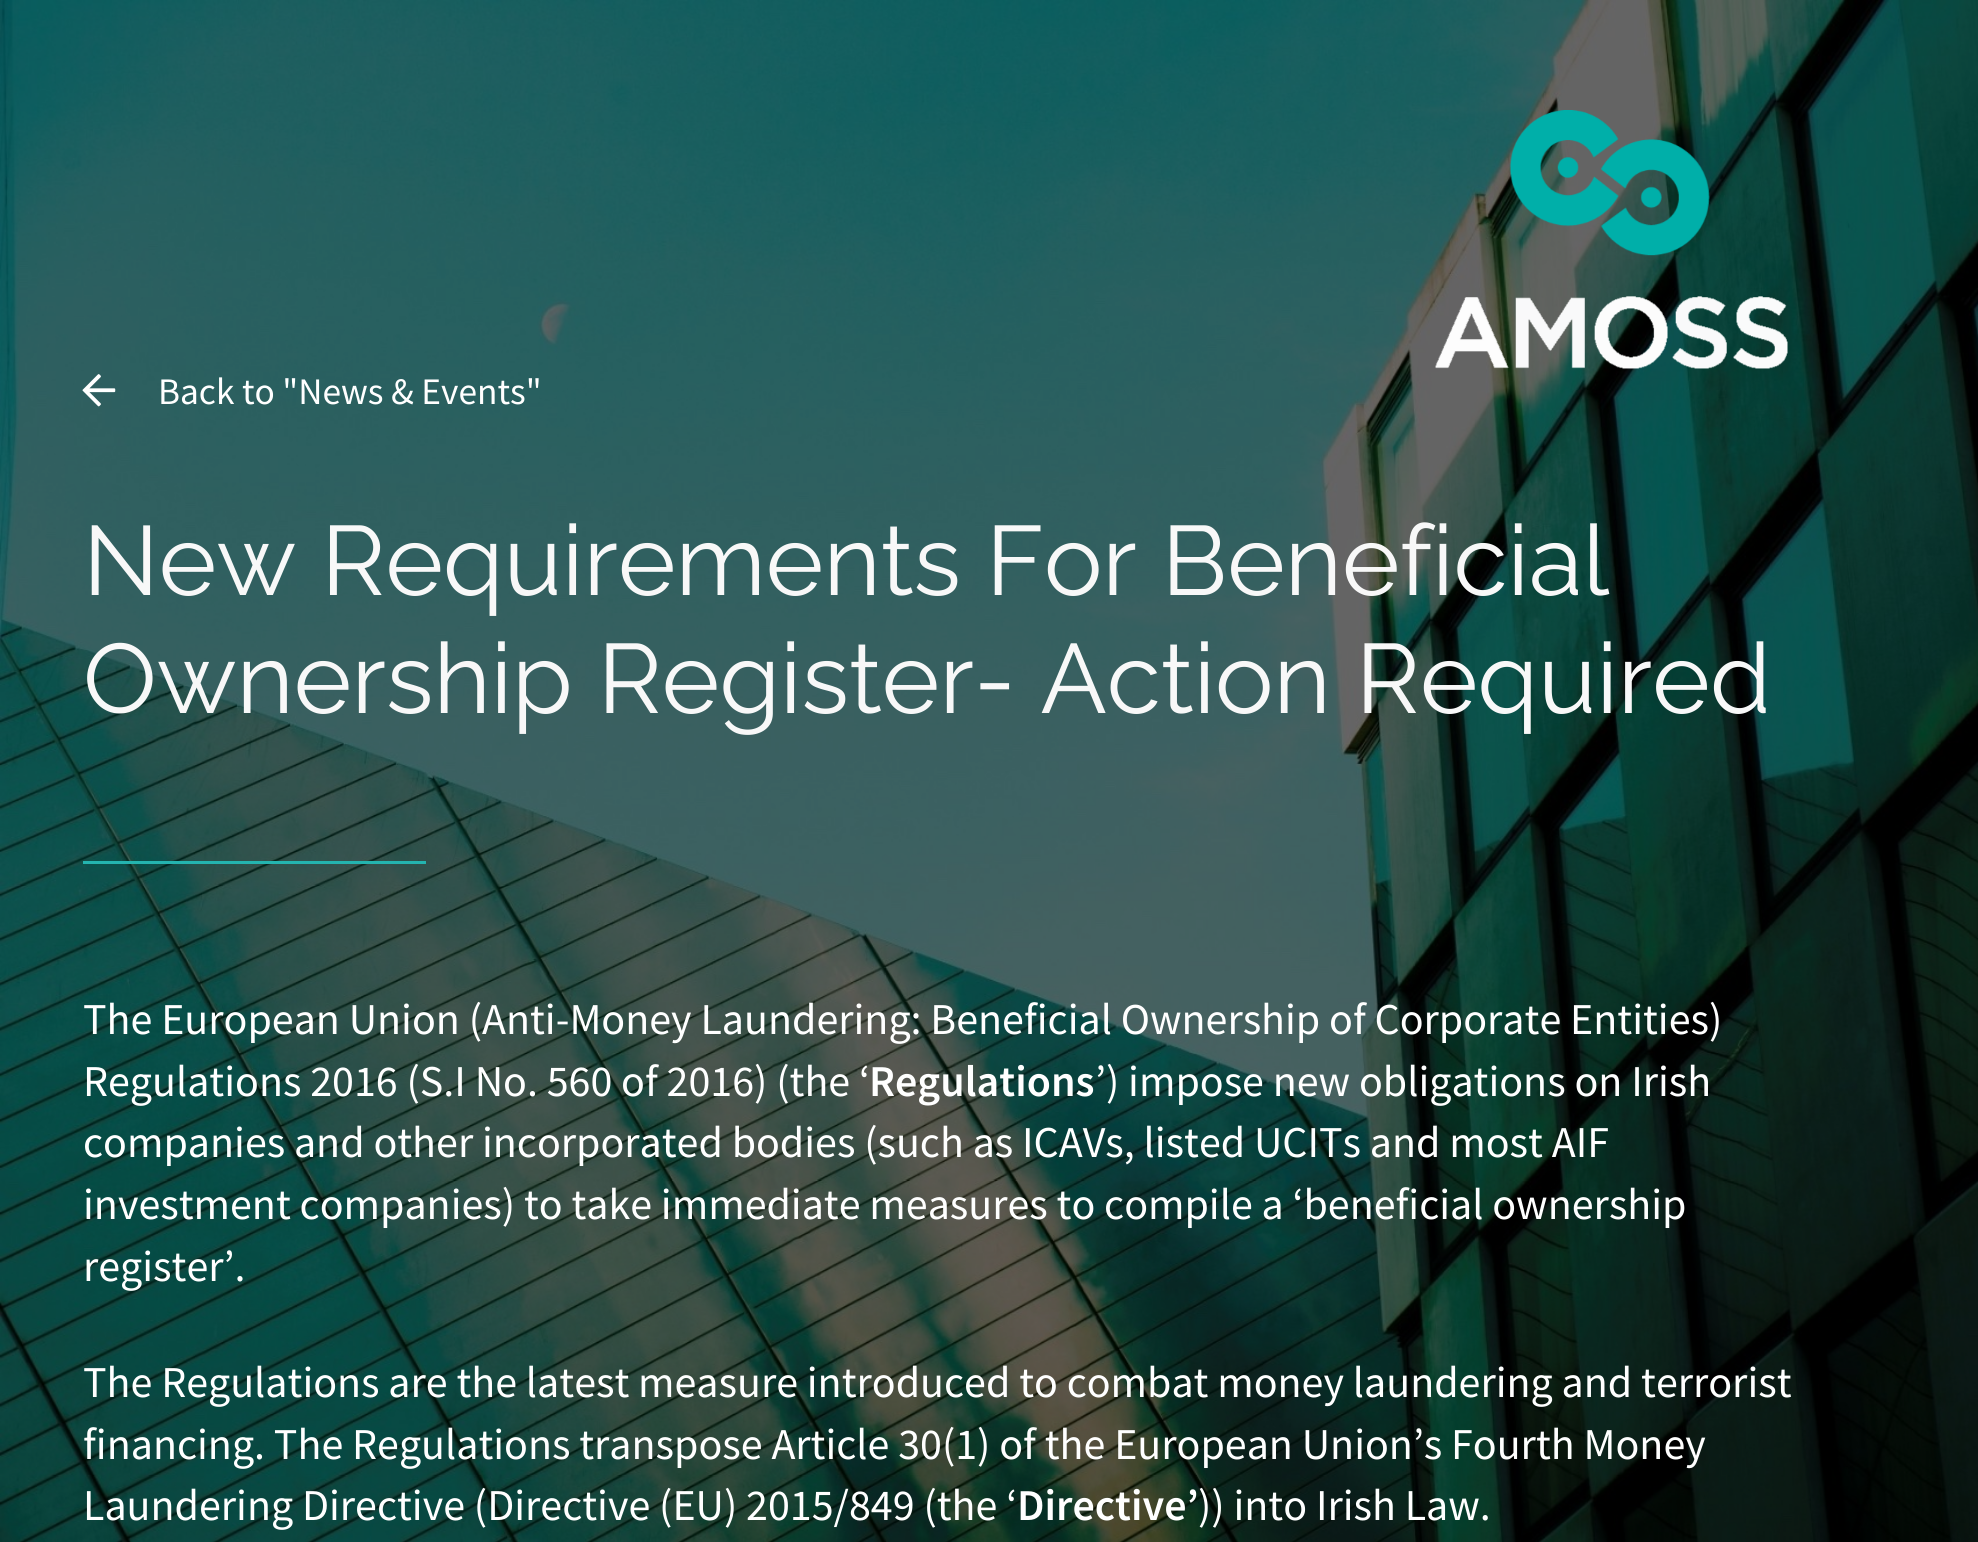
#include <cairo/cairo.h>
#include <math.h>
#include <stddef.h>


static void draw_image(cairo_t *cr, const char *path, double x, double y, double w, double h) {
  cairo_surface_t *image = cairo_image_surface_create_from_png(path);
  cairo_save(cr);
  cairo_set_source_surface(cr, image, x, y);
  cairo_rectangle(cr, x, y, w, h);
  cairo_fill(cr);
  cairo_restore(cr);
  cairo_surface_destroy(image);
}

static void draw(cairo_t *cr) {
  cairo_set_source_rgb(cr, 1, 1, 1);
  cairo_paint(cr);
  draw_image(cr, "images/1.png", 0, 0, 1978, 1542);
  draw_image(cr, "images/2.png", 1435, 110, 353, 259);
  draw_image(cr, "images/3.png", 82, 374, 34, 33);
  cairo_set_source_rgb(cr, 36 / 255.0, 180 / 255.0, 175 / 255.0);
  cairo_rectangle(cr, 83, 861, 343, 3);
  cairo_fill(cr);
  cairo_select_font_face(cr, "Source Sans Pro", CAIRO_FONT_SLANT_NORMAL, CAIRO_FONT_WEIGHT_NORMAL);
  cairo_set_font_size(cr, 37.4);
  cairo_set_source_rgb(cr, 1, 1, 1);
  cairo_move_to(cr, 158, 404);
  cairo_show_text(cr, "Back to \"News & Events\"");
  cairo_select_font_face(cr, "Raleway", CAIRO_FONT_SLANT_NORMAL, CAIRO_FONT_WEIGHT_NORMAL);
  cairo_set_font_size(cr, 98.2);
  cairo_set_source_rgb(cr, 248 / 255.0, 248 / 255.0, 248 / 255.0);
  cairo_move_to(cr, 83, 595);
  cairo_show_text(cr, "New Requirements For Beneficial");
  cairo_move_to(cr, 83, 713);
  cairo_show_text(cr, "Ownership Register- Action Required");
  cairo_select_font_face(cr, "Source Sans Pro", CAIRO_FONT_SLANT_NORMAL, CAIRO_FONT_WEIGHT_NORMAL);
  cairo_set_font_size(cr, 44);
  cairo_set_source_rgb(cr, 1, 1, 1);
  cairo_move_to(cr, 83, 1034);
  cairo_show_text(cr, "The European Union (Anti-Money Laundering: Beneficial Ownership of Corporate Entities)");
  cairo_move_to(cr, 83, 1096);
  cairo_show_text(cr, "Regulations 2016 (S.I No. 560 of 2016) (the ‘");
  cairo_select_font_face(cr, "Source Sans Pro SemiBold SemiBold", CAIRO_FONT_SLANT_NORMAL, CAIRO_FONT_WEIGHT_NORMAL);
  cairo_move_to(cr, 869, 1096);
  cairo_show_text(cr, "Regulations");
  cairo_select_font_face(cr, "Source Sans Pro", CAIRO_FONT_SLANT_NORMAL, CAIRO_FONT_WEIGHT_NORMAL);
  cairo_move_to(cr, 1095, 1096);
  cairo_show_text(cr, "’) impose new obligations on Irish");
  cairo_move_to(cr, 83, 1157);
  cairo_show_text(cr, "companies and other incorporated bodies (such as ICAVs, listed UCITs and most AIF");
  cairo_move_to(cr, 83, 1219);
  cairo_show_text(cr, "investment companies) to take immediate measures to compile a ‘beneficial ownership");
  cairo_move_to(cr, 83, 1281);
  cairo_show_text(cr, "register’.");
  cairo_move_to(cr, 83, 1397);
  cairo_show_text(cr, "The Regulations are the latest measure introduced to combat money laundering and terrorist");
  cairo_move_to(cr, 83, 1459);
  cairo_show_text(cr, "financing. The Regulations transpose Article 30(1) of the European Union’s Fourth Money");
  cairo_move_to(cr, 83, 1520);
  cairo_show_text(cr, "Laundering Directive (Directive (EU) 2015/849 (the ‘");
  cairo_select_font_face(cr, "Source Sans Pro SemiBold SemiBold", CAIRO_FONT_SLANT_NORMAL, CAIRO_FONT_WEIGHT_NORMAL);
  cairo_move_to(cr, 1017, 1520);
  cairo_show_text(cr, "Directive’");
  cairo_select_font_face(cr, "Source Sans Pro", CAIRO_FONT_SLANT_NORMAL, CAIRO_FONT_WEIGHT_NORMAL);
  cairo_move_to(cr, 1198, 1520);
  cairo_show_text(cr, ")) into Irish Law.");
}

int main(void) {
  cairo_surface_t *surface = cairo_image_surface_create(CAIRO_FORMAT_RGB24, 1978, 1542);
  cairo_t *cr = cairo_create(surface);
  cairo_font_options_t *options = cairo_font_options_create();
  cairo_font_options_set_hint_metrics(options, CAIRO_HINT_METRICS_OFF);
  cairo_font_options_set_hint_style(options, CAIRO_HINT_STYLE_NONE);
  cairo_set_font_options(cr, options);
  cairo_set_miter_limit(cr, 4);
  draw(cr);
  cairo_surface_write_to_png(surface, "out.png");
  cairo_font_options_destroy(options);
  cairo_destroy(cr);
  cairo_surface_destroy(surface);
  return 0;
}
